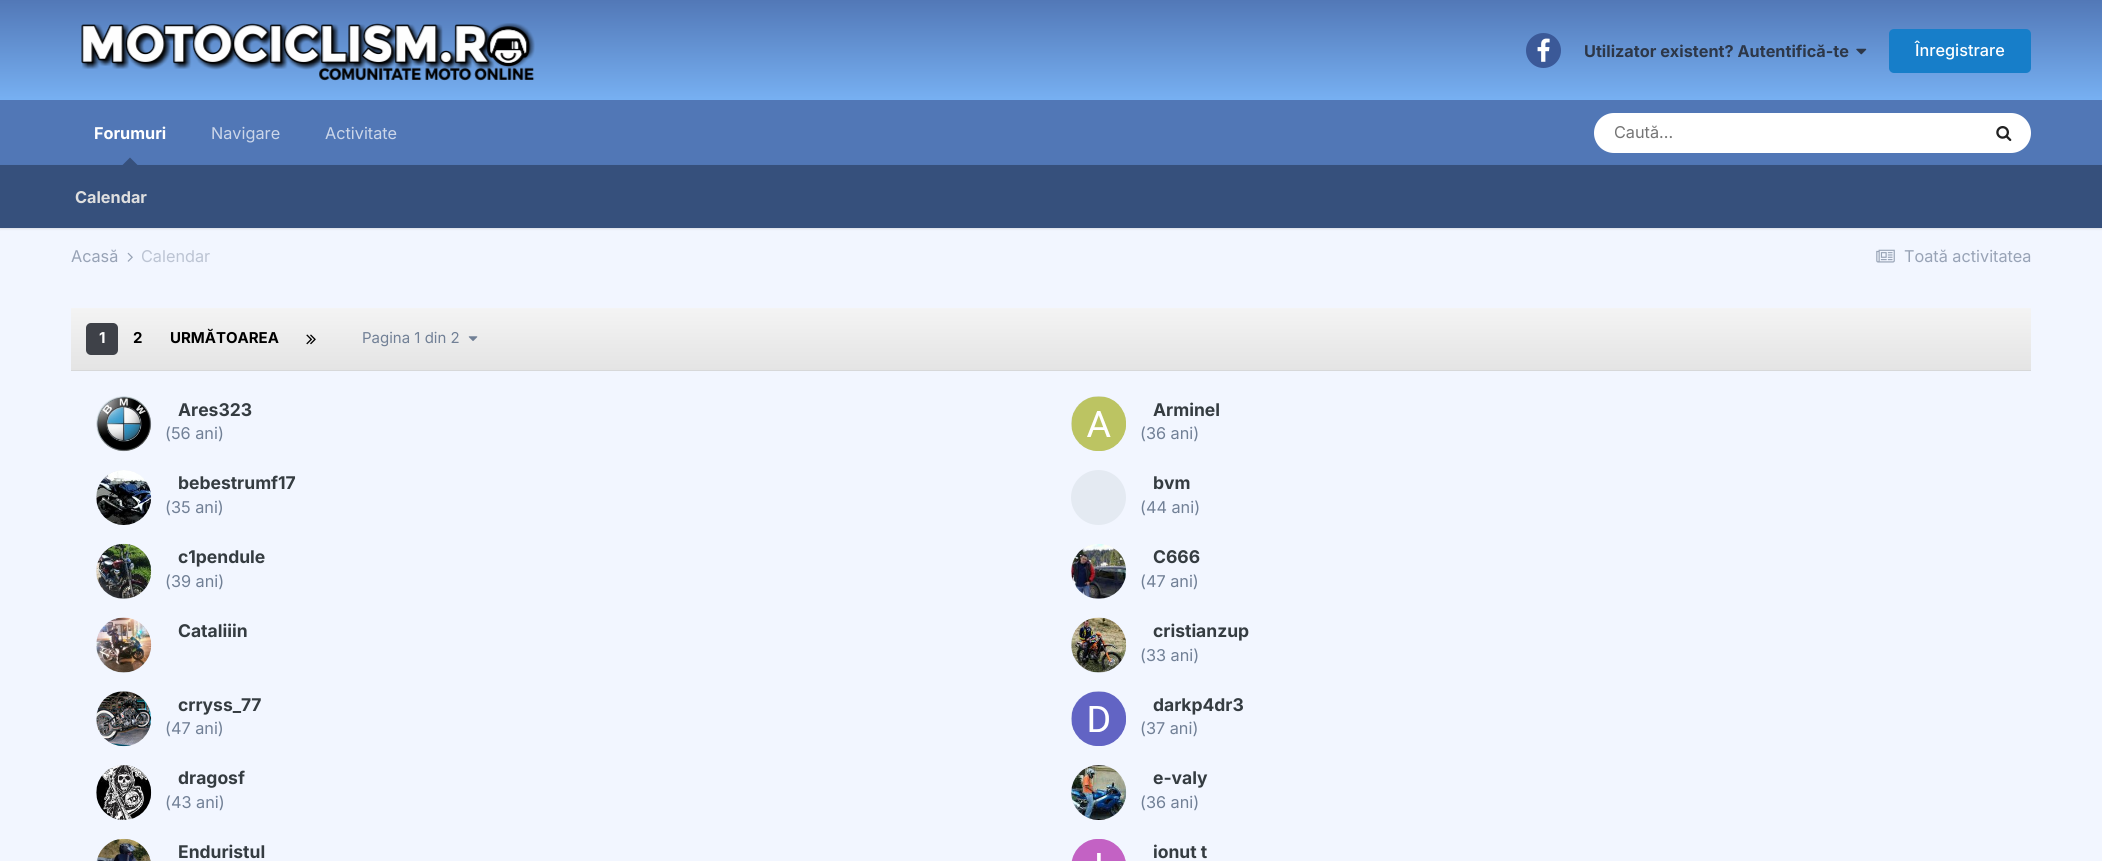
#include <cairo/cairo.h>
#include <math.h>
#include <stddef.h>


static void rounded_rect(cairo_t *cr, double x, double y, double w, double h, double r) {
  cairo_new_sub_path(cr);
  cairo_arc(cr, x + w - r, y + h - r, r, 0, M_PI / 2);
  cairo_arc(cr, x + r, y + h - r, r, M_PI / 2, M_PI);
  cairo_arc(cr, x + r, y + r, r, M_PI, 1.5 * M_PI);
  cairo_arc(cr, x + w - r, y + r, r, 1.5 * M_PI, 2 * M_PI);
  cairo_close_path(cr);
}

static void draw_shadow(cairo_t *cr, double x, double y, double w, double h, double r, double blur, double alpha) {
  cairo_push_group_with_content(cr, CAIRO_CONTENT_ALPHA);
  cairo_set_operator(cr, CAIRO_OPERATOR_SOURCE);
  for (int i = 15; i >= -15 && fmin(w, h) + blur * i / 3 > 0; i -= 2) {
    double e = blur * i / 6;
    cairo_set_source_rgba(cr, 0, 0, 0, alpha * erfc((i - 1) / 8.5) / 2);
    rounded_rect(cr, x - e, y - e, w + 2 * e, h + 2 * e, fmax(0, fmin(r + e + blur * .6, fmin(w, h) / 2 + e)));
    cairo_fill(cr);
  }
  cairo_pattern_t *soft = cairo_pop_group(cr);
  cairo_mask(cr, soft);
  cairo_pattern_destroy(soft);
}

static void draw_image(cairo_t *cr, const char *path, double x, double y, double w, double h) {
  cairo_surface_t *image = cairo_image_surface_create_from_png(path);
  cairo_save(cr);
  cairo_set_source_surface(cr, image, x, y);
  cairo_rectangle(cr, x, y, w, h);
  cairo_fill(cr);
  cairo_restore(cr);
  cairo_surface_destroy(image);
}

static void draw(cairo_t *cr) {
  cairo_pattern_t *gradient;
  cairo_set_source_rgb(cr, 242 / 255.0, 246 / 255.0, 1);
  cairo_paint(cr);
  gradient = cairo_pattern_create_linear(1051, 0, 1051, 100);
  cairo_pattern_add_color_stop_rgba(gradient, 0, 82 / 255.0, 120 / 255.0, 183 / 255.0, 1);
  cairo_pattern_add_color_stop_rgba(gradient, 1, 119 / 255.0, 176 / 255.0, 242 / 255.0, 1);
  cairo_set_source(cr, gradient);
  cairo_pattern_destroy(gradient);
  cairo_rectangle(cr, 0, 0, 2102, 100);
  cairo_fill(cr);
  draw_image(cr, "images/1.png", 81, 23, 454, 58);
  cairo_set_source_rgb(cr, 59 / 255.0, 89 / 255.0, 152 / 255.0);
  cairo_arc(cr, 1543.5, 50.5, 17.5, 0, 2 * M_PI);
  cairo_fill(cr);
  draw_image(cr, "images/2.png", 1537, 38, 13, 24);
  draw_image(cr, "images/3.png", 1856, 48, 11, 7);
  cairo_set_source_rgb(cr, 23 / 255.0, 126 / 255.0, 201 / 255.0);
  rounded_rect(cr, 1889, 29, 142, 44, 5);
  cairo_fill(cr);
  cairo_set_source_rgb(cr, 81 / 255.0, 119 / 255.0, 182 / 255.0);
  cairo_rectangle(cr, 0, 100, 2102, 65);
  cairo_fill(cr);
  cairo_set_source_rgb(cr, 0, 0, 0);
  draw_shadow(cr, 0, 166, 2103, 63, 0, 1, 0.1);
  cairo_set_source_rgb(cr, 54 / 255.0, 80 / 255.0, 124 / 255.0);
  cairo_new_path(cr);
  cairo_move_to(cr, 137.5, 165);
  cairo_line_to(cr, 122.5, 165);
  cairo_line_to(cr, 130, 157.5);
  cairo_close_path(cr);
  cairo_fill(cr);
  cairo_set_source_rgb(cr, 1, 1, 1);
  rounded_rect(cr, 1594, 113, 437, 40, 20);
  cairo_fill(cr);
  draw_image(cr, "images/4.png", 1996, 126, 16, 16);
  cairo_set_source_rgb(cr, 54 / 255.0, 80 / 255.0, 124 / 255.0);
  cairo_rectangle(cr, 0, 165, 2102, 63);
  cairo_fill(cr);
  draw_image(cr, "images/5.png", 127, 252, 6, 10);
  draw_image(cr, "images/6.png", 1876, 249, 19, 14);
  gradient = cairo_pattern_create_linear(1051, 307, 1051, 370);
  cairo_pattern_add_color_stop_rgba(gradient, 0, 244 / 255.0, 244 / 255.0, 244 / 255.0, 1);
  cairo_pattern_add_color_stop_rgba(gradient, 1, 228 / 255.0, 228 / 255.0, 228 / 255.0, 1);
  cairo_set_source(cr, gradient);
  cairo_pattern_destroy(gradient);
  cairo_rectangle(cr, 71, 308, 1960, 62);
  cairo_fill(cr);
  cairo_set_source_rgb(cr, 215 / 255.0, 216 / 255.0, 217 / 255.0);
  cairo_rectangle(cr, 71, 370, 1960, 1);
  cairo_fill(cr);
  cairo_set_source_rgb(cr, 62 / 255.0, 65 / 255.0, 72 / 255.0);
  rounded_rect(cr, 86, 323, 32, 32, 5);
  cairo_fill(cr);
  draw_image(cr, "images/7.png", 306, 334, 10, 11);
  draw_image(cr, "images/8.png", 468, 336, 10, 5);
  cairo_set_source_rgb(cr, 228 / 255.0, 234 / 255.0, 242 / 255.0);
  cairo_arc(cr, 123.5, 423.5, 27.5, 0, 2 * M_PI);
  cairo_fill(cr);
  draw_image(cr, "images/9.png", 96, 396, 56, 56);
  cairo_arc(cr, 1098.5, 423.5, 27.5, 0, 2 * M_PI);
  cairo_fill(cr);
  draw_image(cr, "images/10.png", 1071, 396, 55, 55);
  cairo_arc(cr, 123.5, 497.5, 27.5, 0, 2 * M_PI);
  cairo_fill(cr);
  draw_image(cr, "images/11.png", 96, 470, 56, 55);
  cairo_arc(cr, 1098.5, 497.5, 27.5, 0, 2 * M_PI);
  cairo_fill(cr);
  cairo_arc(cr, 123.5, 571.5, 27.5, 0, 2 * M_PI);
  cairo_fill(cr);
  draw_image(cr, "images/12.png", 96, 543, 56, 56);
  cairo_arc(cr, 1098.5, 571.5, 27.5, 0, 2 * M_PI);
  cairo_fill(cr);
  draw_image(cr, "images/13.png", 1071, 544, 56, 55);
  cairo_arc(cr, 123.5, 645.5, 27.5, 0, 2 * M_PI);
  cairo_fill(cr);
  draw_image(cr, "images/14.png", 96, 617, 56, 56);
  cairo_arc(cr, 1098.5, 645.5, 27.5, 0, 2 * M_PI);
  cairo_fill(cr);
  draw_image(cr, "images/15.png", 1071, 617, 56, 56);
  cairo_arc(cr, 123.5, 718.5, 27.5, 0, 2 * M_PI);
  cairo_fill(cr);
  draw_image(cr, "images/16.png", 96, 691, 56, 56);
  cairo_arc(cr, 1098.5, 718.5, 27.5, 0, 2 * M_PI);
  cairo_fill(cr);
  draw_image(cr, "images/17.png", 1071, 691, 55, 55);
  cairo_arc(cr, 123.5, 792.5, 27.5, 0, 2 * M_PI);
  cairo_fill(cr);
  draw_image(cr, "images/18.png", 96, 765, 56, 55);
  cairo_arc(cr, 1098.5, 792.5, 27.5, 0, 2 * M_PI);
  cairo_fill(cr);
  draw_image(cr, "images/19.png", 1071, 765, 56, 55);
  rounded_rect(cr, 96, 839, 55, 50, 27.5);
  cairo_fill(cr);
  draw_image(cr, "images/20.png", 96, 838, 55, 23);
  rounded_rect(cr, 1071, 839, 55, 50, 27.5);
  cairo_fill(cr);
  draw_image(cr, "images/21.png", 1071, 839, 55, 22);
  cairo_select_font_face(cr, "Inter", CAIRO_FONT_SLANT_NORMAL, CAIRO_FONT_WEIGHT_BOLD);
  cairo_set_font_size(cr, 16.25);
  cairo_set_source_rgb(cr, 45 / 255.0, 55 / 255.0, 72 / 255.0);
  cairo_move_to(cr, 1584, 57);
  cairo_show_text(cr, "Utilizator existent? Autentifică-te");
  cairo_select_font_face(cr, "Inter Medium", CAIRO_FONT_SLANT_NORMAL, CAIRO_FONT_WEIGHT_NORMAL);
  cairo_set_source_rgb(cr, 1, 1, 1);
  cairo_move_to(cr, 1915, 56);
  cairo_show_text(cr, "Înregistrare");
  cairo_select_font_face(cr, "Inter", CAIRO_FONT_SLANT_NORMAL, CAIRO_FONT_WEIGHT_BOLD);
  cairo_move_to(cr, 94, 139);
  cairo_show_text(cr, "Forumuri");
  cairo_set_source_rgb(cr, 223 / 255.0, 223 / 255.0, 223 / 255.0);
  cairo_move_to(cr, 75, 203);
  cairo_show_text(cr, "Calendar");
  cairo_select_font_face(cr, "Inter", CAIRO_FONT_SLANT_NORMAL, CAIRO_FONT_WEIGHT_NORMAL);
  cairo_set_source_rgb(cr, 203 / 255.0, 214 / 255.0, 233 / 255.0);
  cairo_move_to(cr, 211, 139);
  cairo_show_text(cr, "Navigare");
  cairo_move_to(cr, 325, 139);
  cairo_show_text(cr, "Activitate");
  cairo_set_source_rgb(cr, 117 / 255.0, 117 / 255.0, 117 / 255.0);
  cairo_move_to(cr, 1614, 138);
  cairo_show_text(cr, "Caută...");
  cairo_set_source_rgb(cr, 152 / 255.0, 163 / 255.0, 182 / 255.0);
  cairo_move_to(cr, 71, 262);
  cairo_show_text(cr, "Acasă");
  cairo_set_source_rgb(cr, 188 / 255.0, 196 / 255.0, 211 / 255.0);
  cairo_move_to(cr, 141, 262);
  cairo_show_text(cr, "Calendar");
  cairo_set_source_rgb(cr, 152 / 255.0, 163 / 255.0, 182 / 255.0);
  cairo_move_to(cr, 1904, 262);
  cairo_show_text(cr, "Toată activitatea");
  cairo_select_font_face(cr, "Inter", CAIRO_FONT_SLANT_NORMAL, CAIRO_FONT_WEIGHT_BOLD);
  cairo_set_font_size(cr, 15);
  cairo_set_source_rgb(cr, 1, 1, 1);
  cairo_move_to(cr, 99, 343);
  cairo_show_text(cr, "1");
  cairo_set_source_rgb(cr, 0, 0, 0);
  cairo_move_to(cr, 133, 343);
  cairo_show_text(cr, "2");
  cairo_move_to(cr, 170, 343);
  cairo_show_text(cr, "URMĂTOAREA");
  cairo_select_font_face(cr, "Inter", CAIRO_FONT_SLANT_NORMAL, CAIRO_FONT_WEIGHT_NORMAL);
  cairo_set_source_rgb(cr, 113 / 255.0, 128 / 255.0, 150 / 255.0);
  cairo_move_to(cr, 362, 343);
  cairo_show_text(cr, "Pagina 1 din 2");
  cairo_select_font_face(cr, "Inter", CAIRO_FONT_SLANT_NORMAL, CAIRO_FONT_WEIGHT_BOLD);
  cairo_set_font_size(cr, 17.5);
  cairo_set_source_rgb(cr, 53 / 255.0, 60 / 255.0, 65 / 255.0);
  cairo_move_to(cr, 178, 416);
  cairo_show_text(cr, "Ares323");
  cairo_select_font_face(cr, "Inter", CAIRO_FONT_SLANT_NORMAL, CAIRO_FONT_WEIGHT_NORMAL);
  cairo_set_font_size(cr, 16.25);
  cairo_set_source_rgb(cr, 113 / 255.0, 128 / 255.0, 150 / 255.0);
  cairo_move_to(cr, 165, 439);
  cairo_show_text(cr, "(56 ani)");
  cairo_select_font_face(cr, "Inter", CAIRO_FONT_SLANT_NORMAL, CAIRO_FONT_WEIGHT_BOLD);
  cairo_set_font_size(cr, 17.5);
  cairo_set_source_rgb(cr, 53 / 255.0, 60 / 255.0, 65 / 255.0);
  cairo_move_to(cr, 1153, 416);
  cairo_show_text(cr, "Arminel");
  cairo_select_font_face(cr, "Inter", CAIRO_FONT_SLANT_NORMAL, CAIRO_FONT_WEIGHT_NORMAL);
  cairo_set_font_size(cr, 16.25);
  cairo_set_source_rgb(cr, 113 / 255.0, 128 / 255.0, 150 / 255.0);
  cairo_move_to(cr, 1140, 439);
  cairo_show_text(cr, "(36 ani)");
  cairo_select_font_face(cr, "Inter", CAIRO_FONT_SLANT_NORMAL, CAIRO_FONT_WEIGHT_BOLD);
  cairo_set_font_size(cr, 17.5);
  cairo_set_source_rgb(cr, 53 / 255.0, 60 / 255.0, 65 / 255.0);
  cairo_move_to(cr, 178, 489);
  cairo_show_text(cr, "bebestrumf17");
  cairo_select_font_face(cr, "Inter", CAIRO_FONT_SLANT_NORMAL, CAIRO_FONT_WEIGHT_NORMAL);
  cairo_set_font_size(cr, 16.25);
  cairo_set_source_rgb(cr, 113 / 255.0, 128 / 255.0, 150 / 255.0);
  cairo_move_to(cr, 165, 513);
  cairo_show_text(cr, "(35 ani)");
  cairo_select_font_face(cr, "Inter", CAIRO_FONT_SLANT_NORMAL, CAIRO_FONT_WEIGHT_BOLD);
  cairo_set_font_size(cr, 17.5);
  cairo_set_source_rgb(cr, 53 / 255.0, 60 / 255.0, 65 / 255.0);
  cairo_move_to(cr, 1153, 489);
  cairo_show_text(cr, "bvm");
  cairo_select_font_face(cr, "Inter", CAIRO_FONT_SLANT_NORMAL, CAIRO_FONT_WEIGHT_NORMAL);
  cairo_set_font_size(cr, 16.25);
  cairo_set_source_rgb(cr, 113 / 255.0, 128 / 255.0, 150 / 255.0);
  cairo_move_to(cr, 1140, 513);
  cairo_show_text(cr, "(44 ani)");
  cairo_select_font_face(cr, "Inter", CAIRO_FONT_SLANT_NORMAL, CAIRO_FONT_WEIGHT_BOLD);
  cairo_set_font_size(cr, 17.5);
  cairo_set_source_rgb(cr, 53 / 255.0, 60 / 255.0, 65 / 255.0);
  cairo_move_to(cr, 178, 563);
  cairo_show_text(cr, "c1pendule");
  cairo_select_font_face(cr, "Inter", CAIRO_FONT_SLANT_NORMAL, CAIRO_FONT_WEIGHT_NORMAL);
  cairo_set_font_size(cr, 16.25);
  cairo_set_source_rgb(cr, 113 / 255.0, 128 / 255.0, 150 / 255.0);
  cairo_move_to(cr, 165, 587);
  cairo_show_text(cr, "(39 ani)");
  cairo_select_font_face(cr, "Inter", CAIRO_FONT_SLANT_NORMAL, CAIRO_FONT_WEIGHT_BOLD);
  cairo_set_font_size(cr, 17.5);
  cairo_set_source_rgb(cr, 53 / 255.0, 60 / 255.0, 65 / 255.0);
  cairo_move_to(cr, 1153, 563);
  cairo_show_text(cr, "C666");
  cairo_select_font_face(cr, "Inter", CAIRO_FONT_SLANT_NORMAL, CAIRO_FONT_WEIGHT_NORMAL);
  cairo_set_font_size(cr, 16.25);
  cairo_set_source_rgb(cr, 113 / 255.0, 128 / 255.0, 150 / 255.0);
  cairo_move_to(cr, 1140, 587);
  cairo_show_text(cr, "(47 ani)");
  cairo_select_font_face(cr, "Inter", CAIRO_FONT_SLANT_NORMAL, CAIRO_FONT_WEIGHT_BOLD);
  cairo_set_font_size(cr, 17.5);
  cairo_set_source_rgb(cr, 53 / 255.0, 60 / 255.0, 65 / 255.0);
  cairo_move_to(cr, 178, 637);
  cairo_show_text(cr, "Cataliiin");
  cairo_move_to(cr, 1153, 637);
  cairo_show_text(cr, "cristianzup");
  cairo_select_font_face(cr, "Inter", CAIRO_FONT_SLANT_NORMAL, CAIRO_FONT_WEIGHT_NORMAL);
  cairo_set_font_size(cr, 16.25);
  cairo_set_source_rgb(cr, 113 / 255.0, 128 / 255.0, 150 / 255.0);
  cairo_move_to(cr, 1140, 661);
  cairo_show_text(cr, "(33 ani)");
  cairo_select_font_face(cr, "Inter", CAIRO_FONT_SLANT_NORMAL, CAIRO_FONT_WEIGHT_BOLD);
  cairo_set_font_size(cr, 17.5);
  cairo_set_source_rgb(cr, 53 / 255.0, 60 / 255.0, 65 / 255.0);
  cairo_move_to(cr, 178, 711);
  cairo_show_text(cr, "crryss_77");
  cairo_select_font_face(cr, "Inter", CAIRO_FONT_SLANT_NORMAL, CAIRO_FONT_WEIGHT_NORMAL);
  cairo_set_font_size(cr, 16.25);
  cairo_set_source_rgb(cr, 113 / 255.0, 128 / 255.0, 150 / 255.0);
  cairo_move_to(cr, 165, 734);
  cairo_show_text(cr, "(47 ani)");
  cairo_select_font_face(cr, "Inter", CAIRO_FONT_SLANT_NORMAL, CAIRO_FONT_WEIGHT_BOLD);
  cairo_set_font_size(cr, 17.5);
  cairo_set_source_rgb(cr, 53 / 255.0, 60 / 255.0, 65 / 255.0);
  cairo_move_to(cr, 1153, 711);
  cairo_show_text(cr, "darkp4dr3");
  cairo_select_font_face(cr, "Inter", CAIRO_FONT_SLANT_NORMAL, CAIRO_FONT_WEIGHT_NORMAL);
  cairo_set_font_size(cr, 16.25);
  cairo_set_source_rgb(cr, 113 / 255.0, 128 / 255.0, 150 / 255.0);
  cairo_move_to(cr, 1140, 734);
  cairo_show_text(cr, "(37 ani)");
  cairo_select_font_face(cr, "Inter", CAIRO_FONT_SLANT_NORMAL, CAIRO_FONT_WEIGHT_BOLD);
  cairo_set_font_size(cr, 17.5);
  cairo_set_source_rgb(cr, 53 / 255.0, 60 / 255.0, 65 / 255.0);
  cairo_move_to(cr, 178, 784);
  cairo_show_text(cr, "dragosf");
  cairo_select_font_face(cr, "Inter", CAIRO_FONT_SLANT_NORMAL, CAIRO_FONT_WEIGHT_NORMAL);
  cairo_set_font_size(cr, 16.25);
  cairo_set_source_rgb(cr, 113 / 255.0, 128 / 255.0, 150 / 255.0);
  cairo_move_to(cr, 165, 808);
  cairo_show_text(cr, "(43 ani)");
  cairo_select_font_face(cr, "Inter", CAIRO_FONT_SLANT_NORMAL, CAIRO_FONT_WEIGHT_BOLD);
  cairo_set_font_size(cr, 17.5);
  cairo_set_source_rgb(cr, 53 / 255.0, 60 / 255.0, 65 / 255.0);
  cairo_move_to(cr, 1153, 784);
  cairo_show_text(cr, "e-valy");
  cairo_select_font_face(cr, "Inter", CAIRO_FONT_SLANT_NORMAL, CAIRO_FONT_WEIGHT_NORMAL);
  cairo_set_font_size(cr, 16.25);
  cairo_set_source_rgb(cr, 113 / 255.0, 128 / 255.0, 150 / 255.0);
  cairo_move_to(cr, 1140, 808);
  cairo_show_text(cr, "(36 ani)");
  cairo_select_font_face(cr, "Inter", CAIRO_FONT_SLANT_NORMAL, CAIRO_FONT_WEIGHT_BOLD);
  cairo_set_font_size(cr, 17.5);
  cairo_set_source_rgb(cr, 53 / 255.0, 60 / 255.0, 65 / 255.0);
  cairo_move_to(cr, 178, 858);
  cairo_show_text(cr, "Enduristul");
  cairo_move_to(cr, 1153, 858);
  cairo_show_text(cr, "ionut t");
}

int main(void) {
  cairo_surface_t *surface = cairo_image_surface_create(CAIRO_FORMAT_RGB24, 2102, 861);
  cairo_t *cr = cairo_create(surface);
  cairo_font_options_t *options = cairo_font_options_create();
  cairo_font_options_set_hint_metrics(options, CAIRO_HINT_METRICS_OFF);
  cairo_font_options_set_hint_style(options, CAIRO_HINT_STYLE_NONE);
  cairo_set_font_options(cr, options);
  cairo_set_miter_limit(cr, 4);
  draw(cr);
  cairo_surface_write_to_png(surface, "out.png");
  cairo_font_options_destroy(options);
  cairo_destroy(cr);
  cairo_surface_destroy(surface);
  return 0;
}
